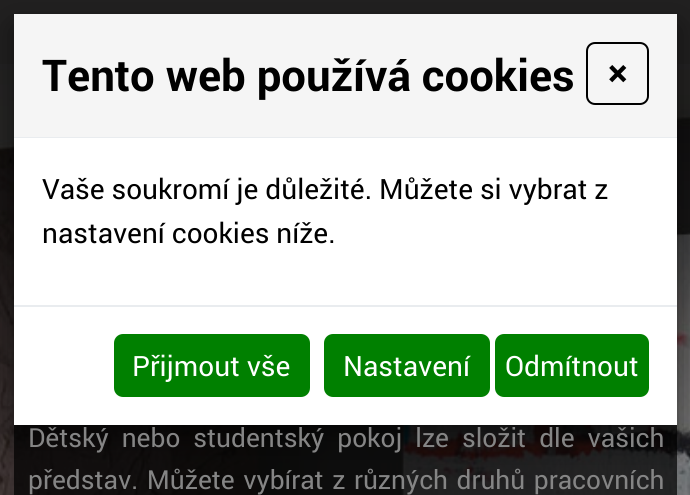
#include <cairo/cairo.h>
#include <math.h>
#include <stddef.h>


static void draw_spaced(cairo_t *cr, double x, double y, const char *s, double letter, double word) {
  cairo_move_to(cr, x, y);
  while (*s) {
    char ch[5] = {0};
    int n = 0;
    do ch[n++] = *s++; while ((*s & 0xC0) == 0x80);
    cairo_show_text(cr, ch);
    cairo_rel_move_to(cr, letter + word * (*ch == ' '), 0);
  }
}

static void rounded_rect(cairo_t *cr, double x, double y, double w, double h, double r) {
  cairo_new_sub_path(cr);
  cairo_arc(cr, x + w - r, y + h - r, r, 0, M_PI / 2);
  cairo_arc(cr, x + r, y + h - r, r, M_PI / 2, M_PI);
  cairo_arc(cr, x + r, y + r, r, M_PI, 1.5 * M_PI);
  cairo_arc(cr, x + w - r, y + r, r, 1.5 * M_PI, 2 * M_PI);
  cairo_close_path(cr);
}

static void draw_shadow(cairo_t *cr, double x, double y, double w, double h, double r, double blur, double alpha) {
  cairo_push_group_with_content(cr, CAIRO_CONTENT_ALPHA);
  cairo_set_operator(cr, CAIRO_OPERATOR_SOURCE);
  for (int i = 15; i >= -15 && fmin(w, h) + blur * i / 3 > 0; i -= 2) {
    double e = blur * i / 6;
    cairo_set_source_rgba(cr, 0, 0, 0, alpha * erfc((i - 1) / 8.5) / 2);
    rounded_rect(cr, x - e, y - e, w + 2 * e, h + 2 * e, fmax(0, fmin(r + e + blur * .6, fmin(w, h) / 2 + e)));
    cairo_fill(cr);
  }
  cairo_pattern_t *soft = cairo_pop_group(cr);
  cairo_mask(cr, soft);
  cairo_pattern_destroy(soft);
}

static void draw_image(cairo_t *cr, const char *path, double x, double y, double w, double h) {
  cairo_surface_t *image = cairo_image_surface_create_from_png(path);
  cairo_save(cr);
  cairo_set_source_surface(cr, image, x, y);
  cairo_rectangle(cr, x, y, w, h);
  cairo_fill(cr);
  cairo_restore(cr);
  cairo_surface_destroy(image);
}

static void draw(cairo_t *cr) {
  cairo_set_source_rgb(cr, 33 / 255.0, 32 / 255.0, 32 / 255.0);
  cairo_paint(cr);
  draw_image(cr, "images/1.png", 0, 64, 690, 431);
  cairo_set_source_rgba(cr, 1 / 255.0, 1 / 255.0, 1 / 255.0, 0.7);
  cairo_rectangle(cr, 14, 425, 663, 70);
  cairo_fill(cr);
  cairo_set_source_rgb(cr, 0, 0, 0);
  draw_shadow(cr, 14, 28, 663, 411, 0, 14, 0.5);
  cairo_set_source_rgb(cr, 1, 1, 1);
  cairo_rectangle(cr, 14, 307, 663, 118);
  cairo_fill(cr);
  cairo_set_source_rgb(cr, 245 / 255.0, 245 / 255.0, 245 / 255.0);
  cairo_rectangle(cr, 14, 14, 663, 123);
  cairo_fill(cr);
  cairo_set_source_rgb(cr, 233 / 255.0, 236 / 255.0, 239 / 255.0);
  cairo_rectangle(cr, 14, 137, 663, 1);
  cairo_fill(cr);
  rounded_rect(cr, 587, 43, 61, 61, 8);
  cairo_set_source_rgb(cr, 0, 0, 0);
  cairo_stroke(cr);
  cairo_set_source_rgb(cr, 1, 1, 1);
  cairo_rectangle(cr, 14, 138, 663, 167);
  cairo_fill(cr);
  cairo_set_source_rgb(cr, 233 / 255.0, 236 / 255.0, 239 / 255.0);
  cairo_rectangle(cr, 14, 305, 663, 2);
  cairo_fill(cr);
  cairo_set_source_rgb(cr, 0, 128 / 255.0, 0);
  rounded_rect(cr, 115, 335, 194, 61, 8);
  cairo_fill_preserve(cr);
  cairo_stroke(cr);
  rounded_rect(cr, 325, 335, 164, 61, 8);
  cairo_fill_preserve(cr);
  cairo_stroke(cr);
  rounded_rect(cr, 496, 335, 152, 61, 8);
  cairo_fill_preserve(cr);
  cairo_stroke(cr);
  cairo_select_font_face(cr, "Roboto", CAIRO_FONT_SLANT_NORMAL, CAIRO_FONT_WEIGHT_BOLD);
  cairo_set_font_size(cr, 43.75);
  cairo_set_source_rgb(cr, 0, 0, 0);
  cairo_move_to(cr, 42, 91);
  cairo_show_text(cr, "Tento web používá cookies");
  cairo_set_font_size(cr, 37);
  cairo_move_to(cr, 608, 86);
  cairo_show_text(cr, "×");
  cairo_select_font_face(cr, "Roboto", CAIRO_FONT_SLANT_NORMAL, CAIRO_FONT_WEIGHT_NORMAL);
  cairo_set_font_size(cr, 28);
  cairo_move_to(cr, 42, 199);
  cairo_show_text(cr, "Vaše soukromí je důležité. Můžete si vybrat z");
  cairo_move_to(cr, 42, 243);
  cairo_show_text(cr, "nastavení cookies níže.");
  cairo_set_source_rgb(cr, 1, 1, 1);
  cairo_move_to(cr, 132, 376);
  cairo_show_text(cr, "Přijmout vše");
  cairo_move_to(cr, 343, 376);
  cairo_show_text(cr, "Nastavení");
  cairo_move_to(cr, 505, 376);
  cairo_show_text(cr, "Odmítnout");
  cairo_set_font_size(cr, 26.25);
  cairo_set_source_rgb(cr, 133 / 255.0, 133 / 255.0, 133 / 255.0);
  draw_spaced(cr, 28, 447, "Dětský nebo studentský pokoj lze složit dle vašich", 0, 6.5);
  draw_spaced(cr, 28, 489, "představ. Můžete vybírat z různých druhů pracovních", 0, 2);
}

int main(void) {
  cairo_surface_t *surface = cairo_image_surface_create(CAIRO_FORMAT_RGB24, 690, 495);
  cairo_t *cr = cairo_create(surface);
  cairo_font_options_t *options = cairo_font_options_create();
  cairo_font_options_set_hint_metrics(options, CAIRO_HINT_METRICS_OFF);
  cairo_font_options_set_hint_style(options, CAIRO_HINT_STYLE_NONE);
  cairo_set_font_options(cr, options);
  cairo_set_miter_limit(cr, 4);
  draw(cr);
  cairo_surface_write_to_png(surface, "out.png");
  cairo_font_options_destroy(options);
  cairo_destroy(cr);
  cairo_surface_destroy(surface);
  return 0;
}
